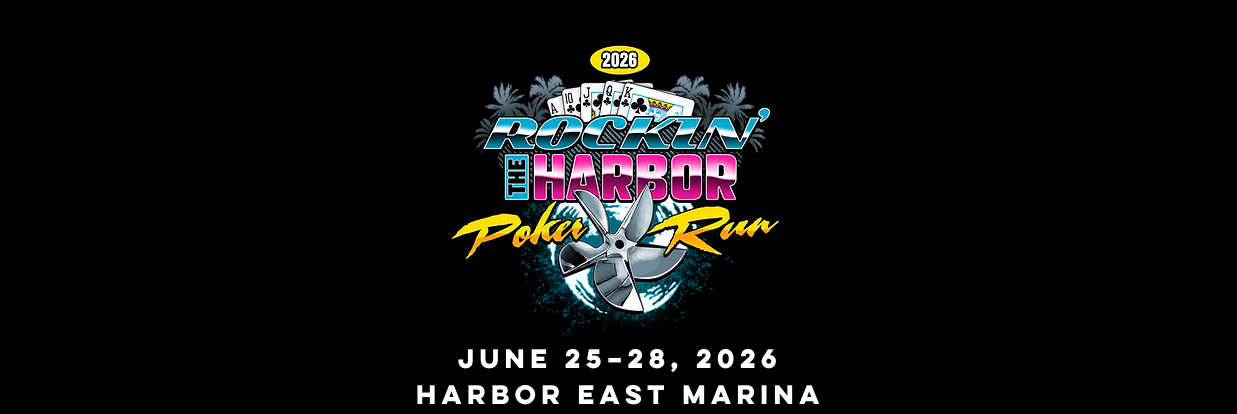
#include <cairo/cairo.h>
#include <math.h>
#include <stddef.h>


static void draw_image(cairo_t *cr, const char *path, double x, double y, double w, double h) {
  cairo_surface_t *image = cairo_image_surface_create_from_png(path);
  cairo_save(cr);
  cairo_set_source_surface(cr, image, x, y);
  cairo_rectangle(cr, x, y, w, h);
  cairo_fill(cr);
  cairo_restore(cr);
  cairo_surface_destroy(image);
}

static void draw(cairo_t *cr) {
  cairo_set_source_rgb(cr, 0, 0, 0);
  cairo_paint(cr);
  draw_image(cr, "images/1.png", 451, 43, 328, 292);
  cairo_select_font_face(cr, "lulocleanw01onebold", CAIRO_FONT_SLANT_NORMAL, CAIRO_FONT_WEIGHT_BOLD);
  cairo_set_font_size(cr, 24);
  cairo_set_source_rgb(cr, 1, 1, 1);
  cairo_move_to(cr, 458, 368);
  cairo_show_text(cr, "JUNE 25–28, 2026");
  cairo_move_to(cr, 416, 404);
  cairo_show_text(cr, "HARBOR EAST MARINA");
}

int main(void) {
  cairo_surface_t *surface = cairo_image_surface_create(CAIRO_FORMAT_RGB24, 1237, 414);
  cairo_t *cr = cairo_create(surface);
  cairo_font_options_t *options = cairo_font_options_create();
  cairo_font_options_set_hint_metrics(options, CAIRO_HINT_METRICS_OFF);
  cairo_font_options_set_hint_style(options, CAIRO_HINT_STYLE_NONE);
  cairo_set_font_options(cr, options);
  cairo_set_miter_limit(cr, 4);
  draw(cr);
  cairo_surface_write_to_png(surface, "out.png");
  cairo_font_options_destroy(options);
  cairo_destroy(cr);
  cairo_surface_destroy(surface);
  return 0;
}
